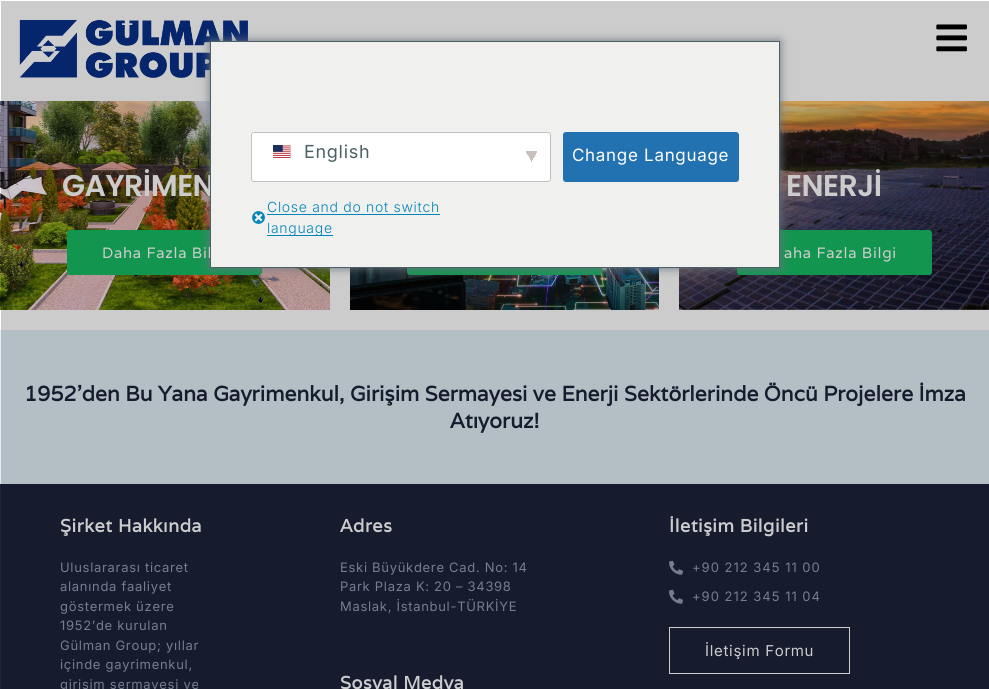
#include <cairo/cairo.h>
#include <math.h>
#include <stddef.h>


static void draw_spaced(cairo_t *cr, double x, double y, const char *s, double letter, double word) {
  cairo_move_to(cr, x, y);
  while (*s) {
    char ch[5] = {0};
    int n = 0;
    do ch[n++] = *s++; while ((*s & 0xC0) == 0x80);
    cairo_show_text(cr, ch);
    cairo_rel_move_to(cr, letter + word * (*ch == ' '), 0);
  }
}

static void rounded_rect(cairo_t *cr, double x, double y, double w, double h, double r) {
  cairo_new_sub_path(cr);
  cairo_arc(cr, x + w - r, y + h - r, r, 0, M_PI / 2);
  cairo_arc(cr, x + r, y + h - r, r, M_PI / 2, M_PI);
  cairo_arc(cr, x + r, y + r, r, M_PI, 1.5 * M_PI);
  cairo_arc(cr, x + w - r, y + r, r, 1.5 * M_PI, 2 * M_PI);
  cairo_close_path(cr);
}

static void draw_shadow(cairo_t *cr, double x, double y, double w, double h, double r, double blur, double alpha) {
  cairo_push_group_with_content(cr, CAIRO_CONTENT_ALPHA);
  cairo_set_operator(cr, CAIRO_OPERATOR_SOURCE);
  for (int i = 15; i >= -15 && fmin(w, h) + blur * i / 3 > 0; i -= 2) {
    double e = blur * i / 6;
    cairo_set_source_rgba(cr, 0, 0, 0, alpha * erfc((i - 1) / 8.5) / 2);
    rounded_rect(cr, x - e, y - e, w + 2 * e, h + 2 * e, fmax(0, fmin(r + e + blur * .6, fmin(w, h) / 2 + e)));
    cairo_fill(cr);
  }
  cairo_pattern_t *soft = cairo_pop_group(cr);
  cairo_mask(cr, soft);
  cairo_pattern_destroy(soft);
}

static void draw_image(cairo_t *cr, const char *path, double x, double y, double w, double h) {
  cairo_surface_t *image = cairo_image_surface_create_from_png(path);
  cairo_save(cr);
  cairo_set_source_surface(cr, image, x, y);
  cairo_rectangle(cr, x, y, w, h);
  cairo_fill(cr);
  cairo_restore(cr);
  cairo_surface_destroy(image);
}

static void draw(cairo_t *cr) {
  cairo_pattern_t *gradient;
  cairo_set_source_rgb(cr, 1, 1, 1);
  cairo_paint(cr);
  cairo_set_source_rgb(cr, 204 / 255.0, 204 / 255.0, 204 / 255.0);
  cairo_rectangle(cr, 1, 268, 988, 62);
  cairo_fill(cr);
  cairo_rectangle(cr, 1, 1, 988, 100);
  cairo_fill(cr);
  draw_image(cr, "images/1.png", 19, 19, 229, 59);
  draw_image(cr, "images/2.png", 936, 24, 31, 28);
  draw_image(cr, "images/5.png", 0, 101, 330, 209);
  cairo_set_source_rgb(cr, 18 / 255.0, 149 / 255.0, 79 / 255.0);
  rounded_rect(cr, 67, 230, 195, 45, 3);
  cairo_fill(cr);
  draw_image(cr, "images/6.png", 679, 101, 310, 209);
  rounded_rect(cr, 737, 230, 195, 45, 3);
  cairo_fill(cr);
  draw_image(cr, "images/7.png", 350, 268, 309, 42);
  rounded_rect(cr, 407, 230, 195, 45, 3);
  cairo_fill(cr);
  cairo_set_source_rgb(cr, 108 / 255.0, 119 / 255.0, 129 / 255.0);
  draw_shadow(cr, 210, 41, 570, 227, 0, 5, 1);
  cairo_set_source_rgb(cr, 224 / 255.0, 237 / 255.0, 246 / 255.0);
  cairo_rectangle(cr, 0, 330, 1, 154);
  cairo_fill(cr);
  cairo_set_source_rgb(cr, 179 / 255.0, 190 / 255.0, 197 / 255.0);
  cairo_rectangle(cr, 1, 330, 988, 154);
  cairo_fill(cr);
  cairo_set_source_rgb(cr, 27 / 255.0, 35 / 255.0, 57 / 255.0);
  cairo_rectangle(cr, 0, 484, 1, 205);
  cairo_fill(cr);
  cairo_set_source_rgb(cr, 22 / 255.0, 28 / 255.0, 46 / 255.0);
  cairo_rectangle(cr, 1, 484, 988, 205);
  cairo_fill(cr);
  draw_image(cr, "images/8.png", 669, 560, 14, 15);
  draw_image(cr, "images/8.png", 669, 589, 14, 15);
  cairo_rectangle(cr, 669.5, 627.5, 180, 46);
  cairo_set_source_rgb(cr, 204 / 255.0, 204 / 255.0, 204 / 255.0);
  cairo_set_line_width(cr, 1);
  cairo_stroke(cr);
  cairo_select_font_face(cr, "Poppins SemiBold", CAIRO_FONT_SLANT_NORMAL, CAIRO_FONT_WEIGHT_NORMAL);
  cairo_set_font_size(cr, 30);
  draw_spaced(cr, 62, 196, "GAYRİMEN", -0.5, 0);
  cairo_select_font_face(cr, "Varela", CAIRO_FONT_SLANT_NORMAL, CAIRO_FONT_WEIGHT_NORMAL);
  cairo_set_font_size(cr, 15);
  draw_spaced(cr, 102, 258, "Daha Fazla Bil", 0.7, 0);
  cairo_set_source_rgb(cr, 240 / 255.0, 240 / 255.0, 238 / 255.0);
  cairo_rectangle(cr, 210.5, 41.5, 569, 226);
  cairo_fill_preserve(cr);
  cairo_set_source_rgb(cr, 76 / 255.0, 96 / 255.0, 102 / 255.0);
  cairo_stroke(cr);
  draw_image(cr, "images/4.png", 252, 211, 13, 13);
  cairo_set_source_rgb(cr, 1, 1, 1);
  rounded_rect(cr, 251, 132, 300, 50, 3);
  cairo_fill(cr);
  gradient = cairo_pattern_create_linear(524, 159, 533, 154);
  cairo_pattern_add_color_stop_rgba(gradient, 0.5, 1, 1, 1, 1);
  cairo_pattern_add_color_stop_rgba(gradient, 0.5, 201 / 255.0, 192 / 255.0, 187 / 255.0, 1);
  cairo_set_source(cr, gradient);
  cairo_pattern_destroy(gradient);
  cairo_rectangle(cr, 526, 151, 6, 12);
  cairo_fill(cr);
  gradient = cairo_pattern_create_linear(530, 154, 539, 159);
  cairo_pattern_add_color_stop_rgba(gradient, 0.5, 201 / 255.0, 192 / 255.0, 187 / 255.0, 1);
  cairo_pattern_add_color_stop_rgba(gradient, 0.5, 1, 1, 1, 1);
  cairo_set_source(cr, gradient);
  cairo_pattern_destroy(gradient);
  cairo_rectangle(cr, 532, 151, 5, 12);
  cairo_fill(cr);
  rounded_rect(cr, 251.5, 132.5, 299, 49, 2.5);
  cairo_set_source_rgb(cr, 193 / 255.0, 193 / 255.0, 193 / 255.0);
  cairo_stroke(cr);
  cairo_select_font_face(cr, "Inter", CAIRO_FONT_SLANT_NORMAL, CAIRO_FONT_WEIGHT_NORMAL);
  cairo_set_font_size(cr, 18);
  cairo_set_source_rgb(cr, 76 / 255.0, 96 / 255.0, 102 / 255.0);
  draw_spaced(cr, 304, 158, "English", 0.7, 0);
  draw_image(cr, "images/3.png", 273, 145, 18, 13);
  cairo_set_source_rgb(cr, 0, 133 / 255.0, 186 / 255.0);
  cairo_rectangle(cr, 267, 235, 66, 1);
  cairo_fill(cr);
  cairo_select_font_face(cr, "Inter Light", CAIRO_FONT_SLANT_NORMAL, CAIRO_FONT_WEIGHT_NORMAL);
  cairo_set_font_size(cr, 14);
  draw_spaced(cr, 267, 233, "language", 0.7, 0);
  draw_spaced(cr, 267, 212, "Close and do not switch", 0.7, 0);
  cairo_rectangle(cr, 267, 214, 173, 1);
  cairo_fill(cr);
  cairo_set_source_rgb(cr, 34 / 255.0, 113 / 255.0, 177 / 255.0);
  rounded_rect(cr, 563.5, 132.5, 175, 49, 2.5);
  cairo_fill_preserve(cr);
  cairo_stroke(cr);
  cairo_select_font_face(cr, "Inter", CAIRO_FONT_SLANT_NORMAL, CAIRO_FONT_WEIGHT_NORMAL);
  cairo_set_font_size(cr, 17);
  cairo_set_source_rgb(cr, 1, 1, 1);
  draw_spaced(cr, 572, 161, "Change Language", 0.7, 0);
  cairo_select_font_face(cr, "Poppins SemiBold", CAIRO_FONT_SLANT_NORMAL, CAIRO_FONT_WEIGHT_NORMAL);
  cairo_set_font_size(cr, 30);
  cairo_set_source_rgb(cr, 204 / 255.0, 204 / 255.0, 204 / 255.0);
  draw_spaced(cr, 786, 196, "ENERJİ", -0.5, 0);
  cairo_select_font_face(cr, "Varela", CAIRO_FONT_SLANT_NORMAL, CAIRO_FONT_WEIGHT_NORMAL);
  cairo_set_font_size(cr, 15);
  draw_spaced(cr, 784, 258, "aha Fazla Bilgi", 0.7, 0);
  cairo_select_font_face(cr, "Varela", CAIRO_FONT_SLANT_NORMAL, CAIRO_FONT_WEIGHT_BOLD);
  cairo_set_font_size(cr, 21);
  cairo_set_source_rgb(cr, 22 / 255.0, 28 / 255.0, 46 / 255.0);
  cairo_move_to(cr, 24, 401);
  cairo_show_text(cr, "1952'den Bu Yana Gayrimenkul, Girişim Sermayesi ve Enerji Sektörlerinde Öncü Projelere İmza");
  cairo_move_to(cr, 450, 428);
  cairo_show_text(cr, "Atıyoruz!");
  cairo_set_font_size(cr, 18);
  cairo_set_source_rgb(cr, 204 / 255.0, 204 / 255.0, 204 / 255.0);
  draw_spaced(cr, 60, 532, "Şirket Hakkında", 0.5, 0);
  cairo_select_font_face(cr, "Inter", CAIRO_FONT_SLANT_NORMAL, CAIRO_FONT_WEIGHT_NORMAL);
  cairo_set_font_size(cr, 13);
  cairo_set_source_rgb(cr, 116 / 255.0, 125 / 255.0, 146 / 255.0);
  draw_spaced(cr, 60, 572, "Uluslararası ticaret", 0.7, 0);
  draw_spaced(cr, 60, 591, "alanında faaliyet", 0.7, 0);
  draw_spaced(cr, 60, 611, "göstermek üzere", 0.7, 0);
  draw_spaced(cr, 60, 630, "1952’de kurulan", 0.7, 0);
  draw_spaced(cr, 60, 650, "Gülman Group; yıllar", 0.7, 0);
  draw_spaced(cr, 60, 669, "içinde gayrimenkul,", 0.7, 0);
  draw_spaced(cr, 60, 689, "girişim sermayesi ve", 0.7, 0);
  cairo_select_font_face(cr, "Varela", CAIRO_FONT_SLANT_NORMAL, CAIRO_FONT_WEIGHT_BOLD);
  cairo_set_font_size(cr, 18);
  cairo_set_source_rgb(cr, 204 / 255.0, 204 / 255.0, 204 / 255.0);
  draw_spaced(cr, 340, 532, "Adres", 0.5, 0);
  cairo_select_font_face(cr, "Inter", CAIRO_FONT_SLANT_NORMAL, CAIRO_FONT_WEIGHT_NORMAL);
  cairo_set_font_size(cr, 13);
  cairo_set_source_rgb(cr, 116 / 255.0, 125 / 255.0, 146 / 255.0);
  draw_spaced(cr, 340, 572, "Eski Büyükdere Cad. No: 14", 0.7, 0);
  draw_spaced(cr, 340, 591, "Park Plaza K: 20 – 34398", 0.7, 0);
  draw_spaced(cr, 340, 611, "Maslak, İstanbul-TÜRKİYE", 0.7, 0);
  cairo_select_font_face(cr, "Varela", CAIRO_FONT_SLANT_NORMAL, CAIRO_FONT_WEIGHT_BOLD);
  cairo_set_font_size(cr, 18);
  cairo_set_source_rgb(cr, 204 / 255.0, 204 / 255.0, 204 / 255.0);
  draw_spaced(cr, 340, 689, "Sosyal Medya", 0.5, 0);
  draw_spaced(cr, 669, 532, "İletişim Bilgileri", 0.5, 0);
  cairo_select_font_face(cr, "Inter", CAIRO_FONT_SLANT_NORMAL, CAIRO_FONT_WEIGHT_NORMAL);
  cairo_set_font_size(cr, 13);
  cairo_set_source_rgb(cr, 116 / 255.0, 125 / 255.0, 146 / 255.0);
  draw_spaced(cr, 692, 572, "+90 212 345 11 00", 1, 0);
  draw_spaced(cr, 692, 601, "+90 212 345 11 04", 1, 0);
  cairo_set_font_size(cr, 15);
  cairo_set_source_rgb(cr, 204 / 255.0, 204 / 255.0, 204 / 255.0);
  draw_spaced(cr, 705, 656, "İletişim Formu", 0.7, 0);
}

int main(void) {
  cairo_surface_t *surface = cairo_image_surface_create(CAIRO_FORMAT_RGB24, 989, 689);
  cairo_t *cr = cairo_create(surface);
  cairo_font_options_t *options = cairo_font_options_create();
  cairo_font_options_set_hint_metrics(options, CAIRO_HINT_METRICS_OFF);
  cairo_font_options_set_hint_style(options, CAIRO_HINT_STYLE_NONE);
  cairo_set_font_options(cr, options);
  cairo_set_miter_limit(cr, 4);
  draw(cr);
  cairo_surface_write_to_png(surface, "out.png");
  cairo_font_options_destroy(options);
  cairo_destroy(cr);
  cairo_surface_destroy(surface);
  return 0;
}
